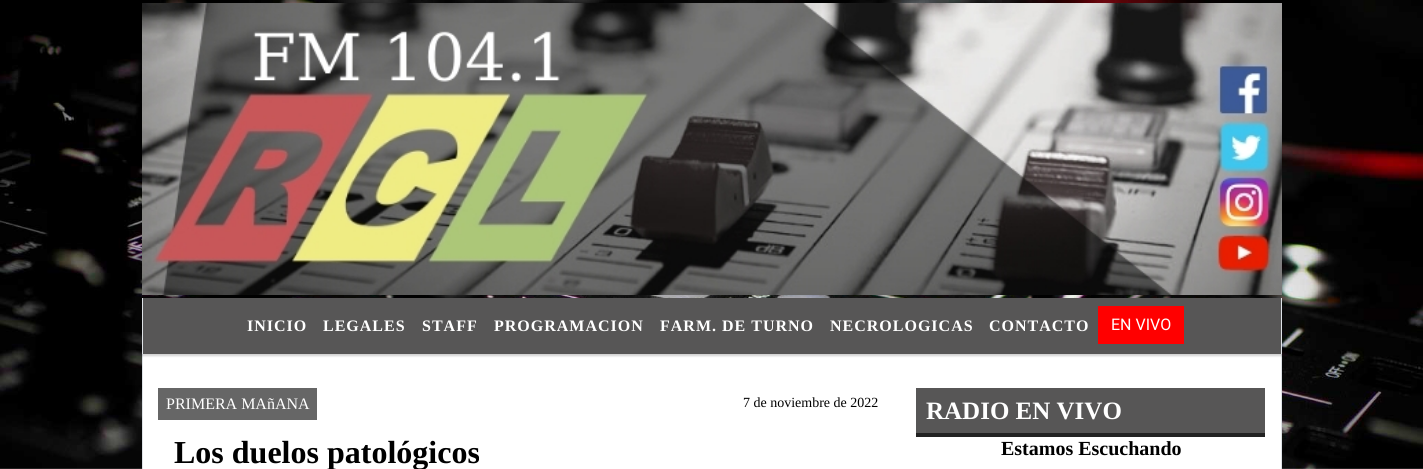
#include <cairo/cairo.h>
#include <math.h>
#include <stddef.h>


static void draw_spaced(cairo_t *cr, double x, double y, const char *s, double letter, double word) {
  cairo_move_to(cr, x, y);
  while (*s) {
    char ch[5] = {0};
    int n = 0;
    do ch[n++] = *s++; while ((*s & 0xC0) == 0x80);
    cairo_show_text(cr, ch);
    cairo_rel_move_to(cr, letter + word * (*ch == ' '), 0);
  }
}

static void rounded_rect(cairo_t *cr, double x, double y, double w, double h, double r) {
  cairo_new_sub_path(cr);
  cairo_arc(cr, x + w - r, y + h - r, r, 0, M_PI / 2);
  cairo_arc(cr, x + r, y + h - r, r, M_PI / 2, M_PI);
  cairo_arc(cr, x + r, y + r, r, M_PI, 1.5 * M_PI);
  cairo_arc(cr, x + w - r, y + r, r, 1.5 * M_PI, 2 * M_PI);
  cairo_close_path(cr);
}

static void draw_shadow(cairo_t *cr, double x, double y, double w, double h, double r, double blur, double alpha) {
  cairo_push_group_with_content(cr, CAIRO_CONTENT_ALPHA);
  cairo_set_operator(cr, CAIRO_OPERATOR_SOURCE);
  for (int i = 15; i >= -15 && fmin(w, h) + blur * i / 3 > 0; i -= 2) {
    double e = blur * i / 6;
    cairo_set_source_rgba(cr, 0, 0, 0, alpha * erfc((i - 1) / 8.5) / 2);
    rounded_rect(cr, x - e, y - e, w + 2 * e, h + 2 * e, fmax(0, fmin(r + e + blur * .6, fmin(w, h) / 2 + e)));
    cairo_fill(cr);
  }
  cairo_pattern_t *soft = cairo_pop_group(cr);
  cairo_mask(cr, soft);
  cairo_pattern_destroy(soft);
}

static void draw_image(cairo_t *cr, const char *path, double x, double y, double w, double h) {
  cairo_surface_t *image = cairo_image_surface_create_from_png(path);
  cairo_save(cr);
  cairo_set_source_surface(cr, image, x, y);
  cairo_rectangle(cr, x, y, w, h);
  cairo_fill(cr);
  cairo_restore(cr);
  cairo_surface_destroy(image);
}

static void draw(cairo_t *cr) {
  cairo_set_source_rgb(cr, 1, 1, 1);
  cairo_paint(cr);
  draw_image(cr, "images/1.png", 0, 0, 1423, 469);
  draw_image(cr, "images/2.png", 142, 3, 1140, 292);
  cairo_set_source_rgb(cr, 1, 1, 1);
  cairo_rectangle(cr, 143, 354, 1138, 115);
  cairo_fill(cr);
  cairo_set_source_rgb(cr, 222 / 255.0, 226 / 255.0, 230 / 255.0);
  cairo_rectangle(cr, 1281, 354, 1, 115);
  cairo_fill(cr);
  cairo_rectangle(cr, 142, 354, 1, 115);
  cairo_fill(cr);
  cairo_set_source_rgb(cr, 0, 0, 0);
  draw_shadow(cr, 142, 300, 1140, 56, 0, 1, 0.18);
  cairo_set_source_rgb(cr, 87 / 255.0, 86 / 255.0, 86 / 255.0);
  cairo_rectangle(cr, 143, 298, 1138, 56);
  cairo_fill(cr);
  cairo_set_source_rgb(cr, 222 / 255.0, 226 / 255.0, 230 / 255.0);
  cairo_rectangle(cr, 1281, 298, 1, 56);
  cairo_fill(cr);
  cairo_rectangle(cr, 142, 298, 1, 56);
  cairo_fill(cr);
  cairo_set_source_rgb(cr, 1, 0, 0);
  cairo_rectangle(cr, 1098, 306, 86, 38);
  cairo_fill(cr);
  cairo_set_source_rgb(cr, 102 / 255.0, 102 / 255.0, 102 / 255.0);
  cairo_rectangle(cr, 158, 388, 159, 32);
  cairo_fill(cr);
  cairo_set_source_rgb(cr, 87 / 255.0, 86 / 255.0, 86 / 255.0);
  cairo_rectangle(cr, 916, 388, 349, 45);
  cairo_fill(cr);
  cairo_set_source_rgb(cr, 34 / 255.0, 34 / 255.0, 34 / 255.0);
  cairo_rectangle(cr, 916, 433, 349, 4);
  cairo_fill(cr);
  cairo_select_font_face(cr, "Liberation Serif", CAIRO_FONT_SLANT_NORMAL, CAIRO_FONT_WEIGHT_BOLD);
  cairo_set_font_size(cr, 16);
  cairo_set_source_rgb(cr, 1, 1, 1);
  draw_spaced(cr, 247, 331, "INICIO", 1, 0);
  draw_spaced(cr, 323, 331, "LEGALES", 1, 0);
  draw_spaced(cr, 422, 331, "STAFF", 1, 0);
  draw_spaced(cr, 494, 331, "PROGRAMACION", 1, 0);
  draw_spaced(cr, 660, 331, "FARM. DE TURNO", 1, 0);
  draw_spaced(cr, 830, 331, "NECROLOGICAS", 1, 0);
  draw_spaced(cr, 989, 331, "CONTACTO", 1, 0);
  cairo_select_font_face(cr, "Roboto", CAIRO_FONT_SLANT_NORMAL, CAIRO_FONT_WEIGHT_NORMAL);
  cairo_move_to(cr, 1111, 330);
  cairo_show_text(cr, "EN VIVO");
  cairo_select_font_face(cr, "Liberation Serif", CAIRO_FONT_SLANT_NORMAL, CAIRO_FONT_WEIGHT_NORMAL);
  cairo_move_to(cr, 166, 409);
  cairo_show_text(cr, "PRIMERA MAñANA");
  cairo_set_font_size(cr, 14);
  cairo_set_source_rgb(cr, 0, 0, 0);
  cairo_move_to(cr, 743, 407);
  cairo_show_text(cr, "7 de noviembre de 2022");
  cairo_select_font_face(cr, "Liberation Serif", CAIRO_FONT_SLANT_NORMAL, CAIRO_FONT_WEIGHT_BOLD);
  cairo_set_font_size(cr, 32);
  cairo_move_to(cr, 174, 463);
  cairo_show_text(cr, "Los duelos patológicos");
  cairo_set_font_size(cr, 25);
  cairo_set_source_rgb(cr, 1, 1, 1);
  cairo_move_to(cr, 926, 419);
  cairo_show_text(cr, "RADIO EN VIVO");
  cairo_set_font_size(cr, 20);
  cairo_set_source_rgb(cr, 0, 0, 0);
  cairo_move_to(cr, 1001, 455);
  cairo_show_text(cr, "Estamos Escuchando");
}

int main(void) {
  cairo_surface_t *surface = cairo_image_surface_create(CAIRO_FORMAT_RGB24, 1423, 469);
  cairo_t *cr = cairo_create(surface);
  cairo_font_options_t *options = cairo_font_options_create();
  cairo_font_options_set_hint_metrics(options, CAIRO_HINT_METRICS_OFF);
  cairo_font_options_set_hint_style(options, CAIRO_HINT_STYLE_NONE);
  cairo_set_font_options(cr, options);
  cairo_set_miter_limit(cr, 4);
  draw(cr);
  cairo_surface_write_to_png(surface, "out.png");
  cairo_font_options_destroy(options);
  cairo_destroy(cr);
  cairo_surface_destroy(surface);
  return 0;
}
